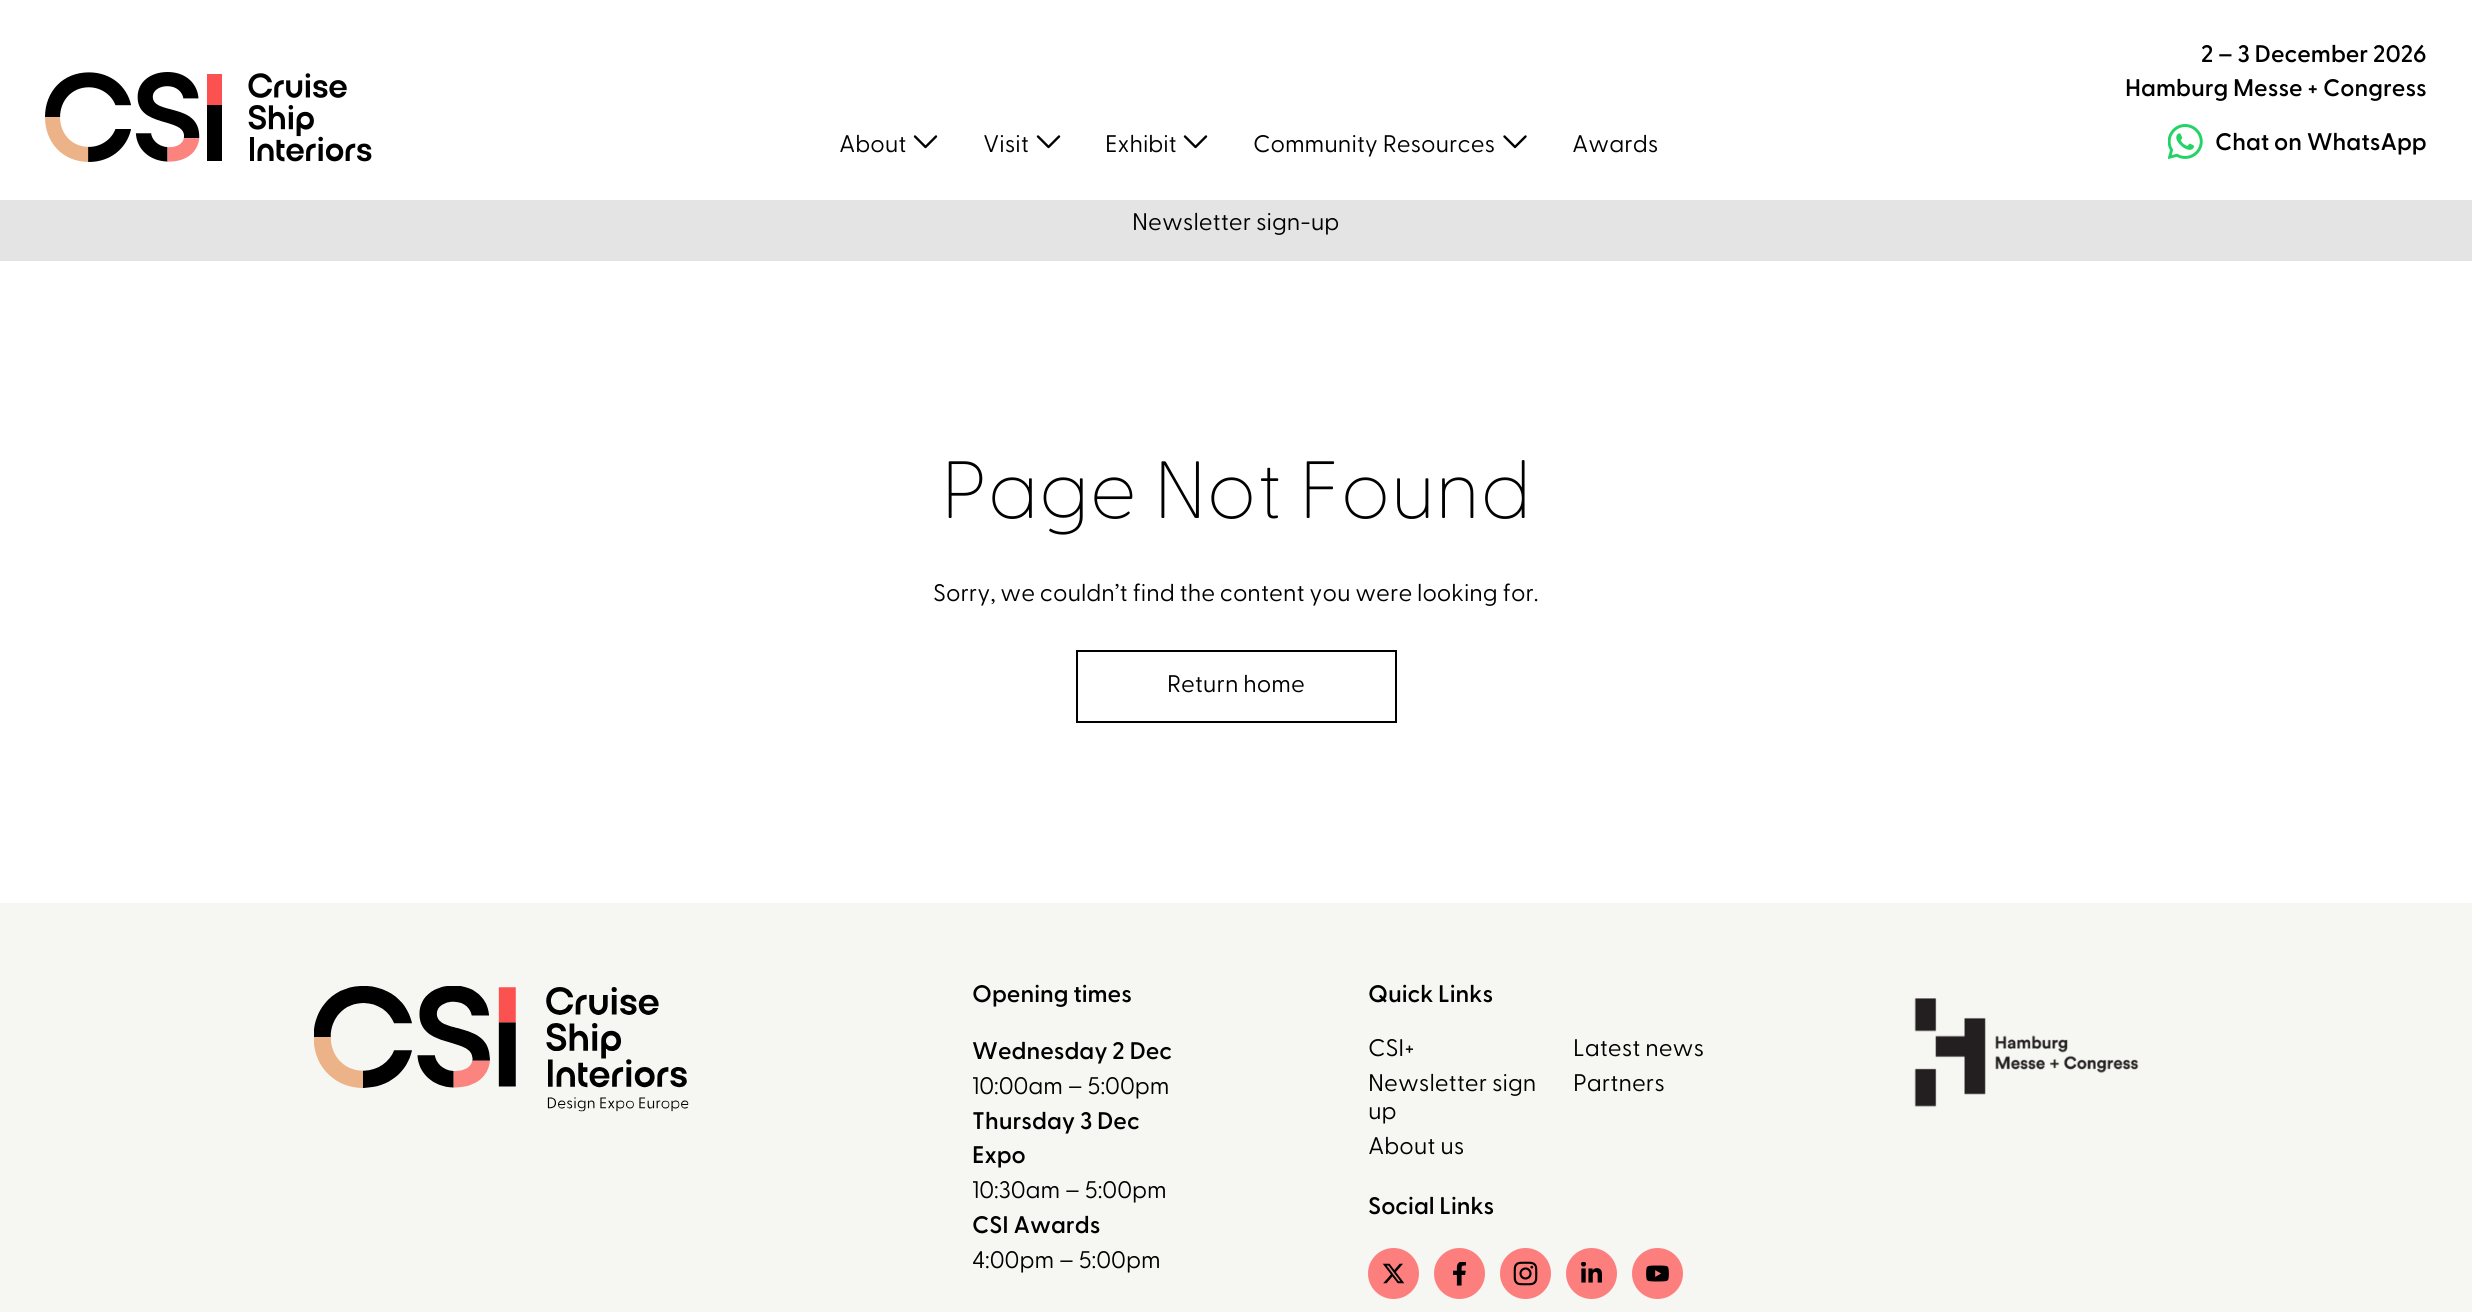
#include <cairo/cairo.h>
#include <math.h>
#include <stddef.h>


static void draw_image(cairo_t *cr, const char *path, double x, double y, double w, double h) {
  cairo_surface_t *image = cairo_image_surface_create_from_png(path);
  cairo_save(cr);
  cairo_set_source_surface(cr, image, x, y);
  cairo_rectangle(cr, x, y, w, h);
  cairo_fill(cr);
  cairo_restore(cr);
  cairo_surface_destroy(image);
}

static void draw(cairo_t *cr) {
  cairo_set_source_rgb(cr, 1, 1, 1);
  cairo_paint(cr);
  draw_image(cr, "images/1.png", 45, 72, 327, 90);
  cairo_new_path(cr);
  cairo_move_to(cr, 915, 136.5);
  cairo_line_to(cr, 925.5, 147);
  cairo_move_to(cr, 936, 136.5);
  cairo_line_to(cr, 925.5, 147);
  cairo_set_source_rgb(cr, 0, 0, 0);
  cairo_set_line_width(cr, 2.4);
  cairo_set_line_cap(cr, CAIRO_LINE_CAP_ROUND);
  cairo_stroke(cr);
  cairo_new_path(cr);
  cairo_move_to(cr, 1038, 136.5);
  cairo_line_to(cr, 1048.5, 147);
  cairo_move_to(cr, 1059, 136.5);
  cairo_line_to(cr, 1048.5, 147);
  cairo_stroke(cr);
  cairo_new_path(cr);
  cairo_move_to(cr, 1185, 136.5);
  cairo_line_to(cr, 1195.5, 147);
  cairo_move_to(cr, 1206, 136.5);
  cairo_line_to(cr, 1195.5, 147);
  cairo_stroke(cr);
  cairo_new_path(cr);
  cairo_move_to(cr, 1504.5, 136.5);
  cairo_line_to(cr, 1515, 147);
  cairo_move_to(cr, 1525.5, 136.5);
  cairo_line_to(cr, 1515, 147);
  cairo_stroke(cr);
  draw_image(cr, "images/2.png", 2168, 124, 35, 36);
  cairo_set_source_rgb(cr, 228 / 255.0, 228 / 255.0, 228 / 255.0);
  cairo_rectangle(cr, 0, 200, 2472, 61);
  cairo_fill(cr);
  cairo_rectangle(cr, 1077, 651, 319, 71);
  cairo_set_source_rgb(cr, 0, 0, 0);
  cairo_set_line_width(cr, 2);
  cairo_set_line_cap(cr, CAIRO_LINE_CAP_BUTT);
  cairo_stroke(cr);
  cairo_set_source_rgb(cr, 246 / 255.0, 246 / 255.0, 243 / 255.0);
  cairo_rectangle(cr, 0, 903, 2472, 409);
  cairo_fill(cr);
  draw_image(cr, "images/3.png", 314, 986, 375, 126);
  draw_image(cr, "images/4.png", 1914, 998, 225, 109);
  cairo_set_source_rgb(cr, 253 / 255.0, 127 / 255.0, 125 / 255.0);
  cairo_arc(cr, 1393.5, 1273.5, 25.5, 0, 2 * M_PI);
  cairo_fill(cr);
  draw_image(cr, "images/5.png", 1382, 1263, 23, 21);
  cairo_arc(cr, 1459.5, 1273.5, 25.5, 0, 2 * M_PI);
  cairo_fill(cr);
  draw_image(cr, "images/6.png", 1453, 1262, 13, 24);
  cairo_arc(cr, 1525.5, 1273.5, 25.5, 0, 2 * M_PI);
  cairo_fill(cr);
  draw_image(cr, "images/7.png", 1513, 1261, 25, 25);
  cairo_arc(cr, 1591.5, 1273.5, 25.5, 0, 2 * M_PI);
  cairo_fill(cr);
  draw_image(cr, "images/8.png", 1581, 1262, 21, 21);
  cairo_arc(cr, 1657.5, 1273.5, 25.5, 0, 2 * M_PI);
  cairo_fill(cr);
  draw_image(cr, "images/9.png", 1646, 1265, 23, 17);
  cairo_select_font_face(cr, "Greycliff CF", CAIRO_FONT_SLANT_NORMAL, CAIRO_FONT_WEIGHT_NORMAL);
  cairo_set_font_size(cr, 24);
  cairo_set_source_rgb(cr, 0, 0, 0);
  cairo_move_to(cr, 839, 152);
  cairo_show_text(cr, "About");
  cairo_move_to(cr, 983, 152);
  cairo_show_text(cr, "Visit");
  cairo_move_to(cr, 1105, 152);
  cairo_show_text(cr, "Exhibit");
  cairo_move_to(cr, 1253, 152);
  cairo_show_text(cr, "Community Resources");
  cairo_move_to(cr, 1572, 152);
  cairo_show_text(cr, "Awards");
  cairo_select_font_face(cr, "Greycliff CF SemiBold", CAIRO_FONT_SLANT_NORMAL, CAIRO_FONT_WEIGHT_NORMAL);
  cairo_move_to(cr, 2201, 62);
  cairo_show_text(cr, "2 – 3 December 2026");
  cairo_move_to(cr, 2125, 96);
  cairo_show_text(cr, "Hamburg Messe + Congress");
  cairo_move_to(cr, 2215, 150);
  cairo_show_text(cr, "Chat on WhatsApp");
  cairo_select_font_face(cr, "Greycliff CF", CAIRO_FONT_SLANT_NORMAL, CAIRO_FONT_WEIGHT_NORMAL);
  cairo_move_to(cr, 1132, 230);
  cairo_show_text(cr, "Newsletter sign-up");
  cairo_select_font_face(cr, "Greycliff CF Thin", CAIRO_FONT_SLANT_NORMAL, CAIRO_FONT_WEIGHT_NORMAL);
  cairo_set_font_size(cr, 81);
  cairo_move_to(cr, 941, 518);
  cairo_show_text(cr, "Page Not Found");
  cairo_select_font_face(cr, "Greycliff CF", CAIRO_FONT_SLANT_NORMAL, CAIRO_FONT_WEIGHT_NORMAL);
  cairo_set_font_size(cr, 24);
  cairo_move_to(cr, 933, 601);
  cairo_show_text(cr, "Sorry, we couldn’t find the content you were looking for.");
  cairo_move_to(cr, 1167, 692);
  cairo_show_text(cr, "Return home");
  cairo_select_font_face(cr, "Greycliff CF SemiBold", CAIRO_FONT_SLANT_NORMAL, CAIRO_FONT_WEIGHT_NORMAL);
  cairo_move_to(cr, 972, 1002);
  cairo_show_text(cr, "Opening times");
  cairo_move_to(cr, 972, 1059);
  cairo_show_text(cr, "Wednesday 2 Dec");
  cairo_select_font_face(cr, "Greycliff CF", CAIRO_FONT_SLANT_NORMAL, CAIRO_FONT_WEIGHT_NORMAL);
  cairo_move_to(cr, 972, 1094);
  cairo_show_text(cr, "10:00am – 5:00pm");
  cairo_select_font_face(cr, "Greycliff CF SemiBold", CAIRO_FONT_SLANT_NORMAL, CAIRO_FONT_WEIGHT_NORMAL);
  cairo_move_to(cr, 972, 1129);
  cairo_show_text(cr, "Thursday 3 Dec");
  cairo_move_to(cr, 972, 1163);
  cairo_show_text(cr, "Expo");
  cairo_select_font_face(cr, "Greycliff CF", CAIRO_FONT_SLANT_NORMAL, CAIRO_FONT_WEIGHT_NORMAL);
  cairo_move_to(cr, 972, 1198);
  cairo_show_text(cr, "10:30am – 5:00pm");
  cairo_select_font_face(cr, "Greycliff CF SemiBold", CAIRO_FONT_SLANT_NORMAL, CAIRO_FONT_WEIGHT_NORMAL);
  cairo_move_to(cr, 972, 1233);
  cairo_show_text(cr, "CSI Awards");
  cairo_select_font_face(cr, "Greycliff CF", CAIRO_FONT_SLANT_NORMAL, CAIRO_FONT_WEIGHT_NORMAL);
  cairo_move_to(cr, 972, 1268);
  cairo_show_text(cr, "4:00pm – 5:00pm");
  cairo_select_font_face(cr, "Greycliff CF SemiBold", CAIRO_FONT_SLANT_NORMAL, CAIRO_FONT_WEIGHT_NORMAL);
  cairo_move_to(cr, 1368, 1002);
  cairo_show_text(cr, "Quick Links");
  cairo_select_font_face(cr, "Greycliff CF", CAIRO_FONT_SLANT_NORMAL, CAIRO_FONT_WEIGHT_NORMAL);
  cairo_move_to(cr, 1368, 1056);
  cairo_show_text(cr, "CSI+");
  cairo_move_to(cr, 1573, 1056);
  cairo_show_text(cr, "Latest news");
  cairo_move_to(cr, 1368, 1091);
  cairo_show_text(cr, "Newsletter sign");
  cairo_move_to(cr, 1368, 1119);
  cairo_show_text(cr, "up");
  cairo_move_to(cr, 1573, 1091);
  cairo_show_text(cr, "Partners");
  cairo_move_to(cr, 1368, 1154);
  cairo_show_text(cr, "About us");
  cairo_select_font_face(cr, "Greycliff CF SemiBold", CAIRO_FONT_SLANT_NORMAL, CAIRO_FONT_WEIGHT_NORMAL);
  cairo_move_to(cr, 1368, 1214);
  cairo_show_text(cr, "Social Links");
}

int main(void) {
  cairo_surface_t *surface = cairo_image_surface_create(CAIRO_FORMAT_RGB24, 2472, 1312);
  cairo_t *cr = cairo_create(surface);
  cairo_font_options_t *options = cairo_font_options_create();
  cairo_font_options_set_hint_metrics(options, CAIRO_HINT_METRICS_OFF);
  cairo_font_options_set_hint_style(options, CAIRO_HINT_STYLE_NONE);
  cairo_set_font_options(cr, options);
  cairo_set_miter_limit(cr, 4);
  draw(cr);
  cairo_surface_write_to_png(surface, "out.png");
  cairo_font_options_destroy(options);
  cairo_destroy(cr);
  cairo_surface_destroy(surface);
  return 0;
}
